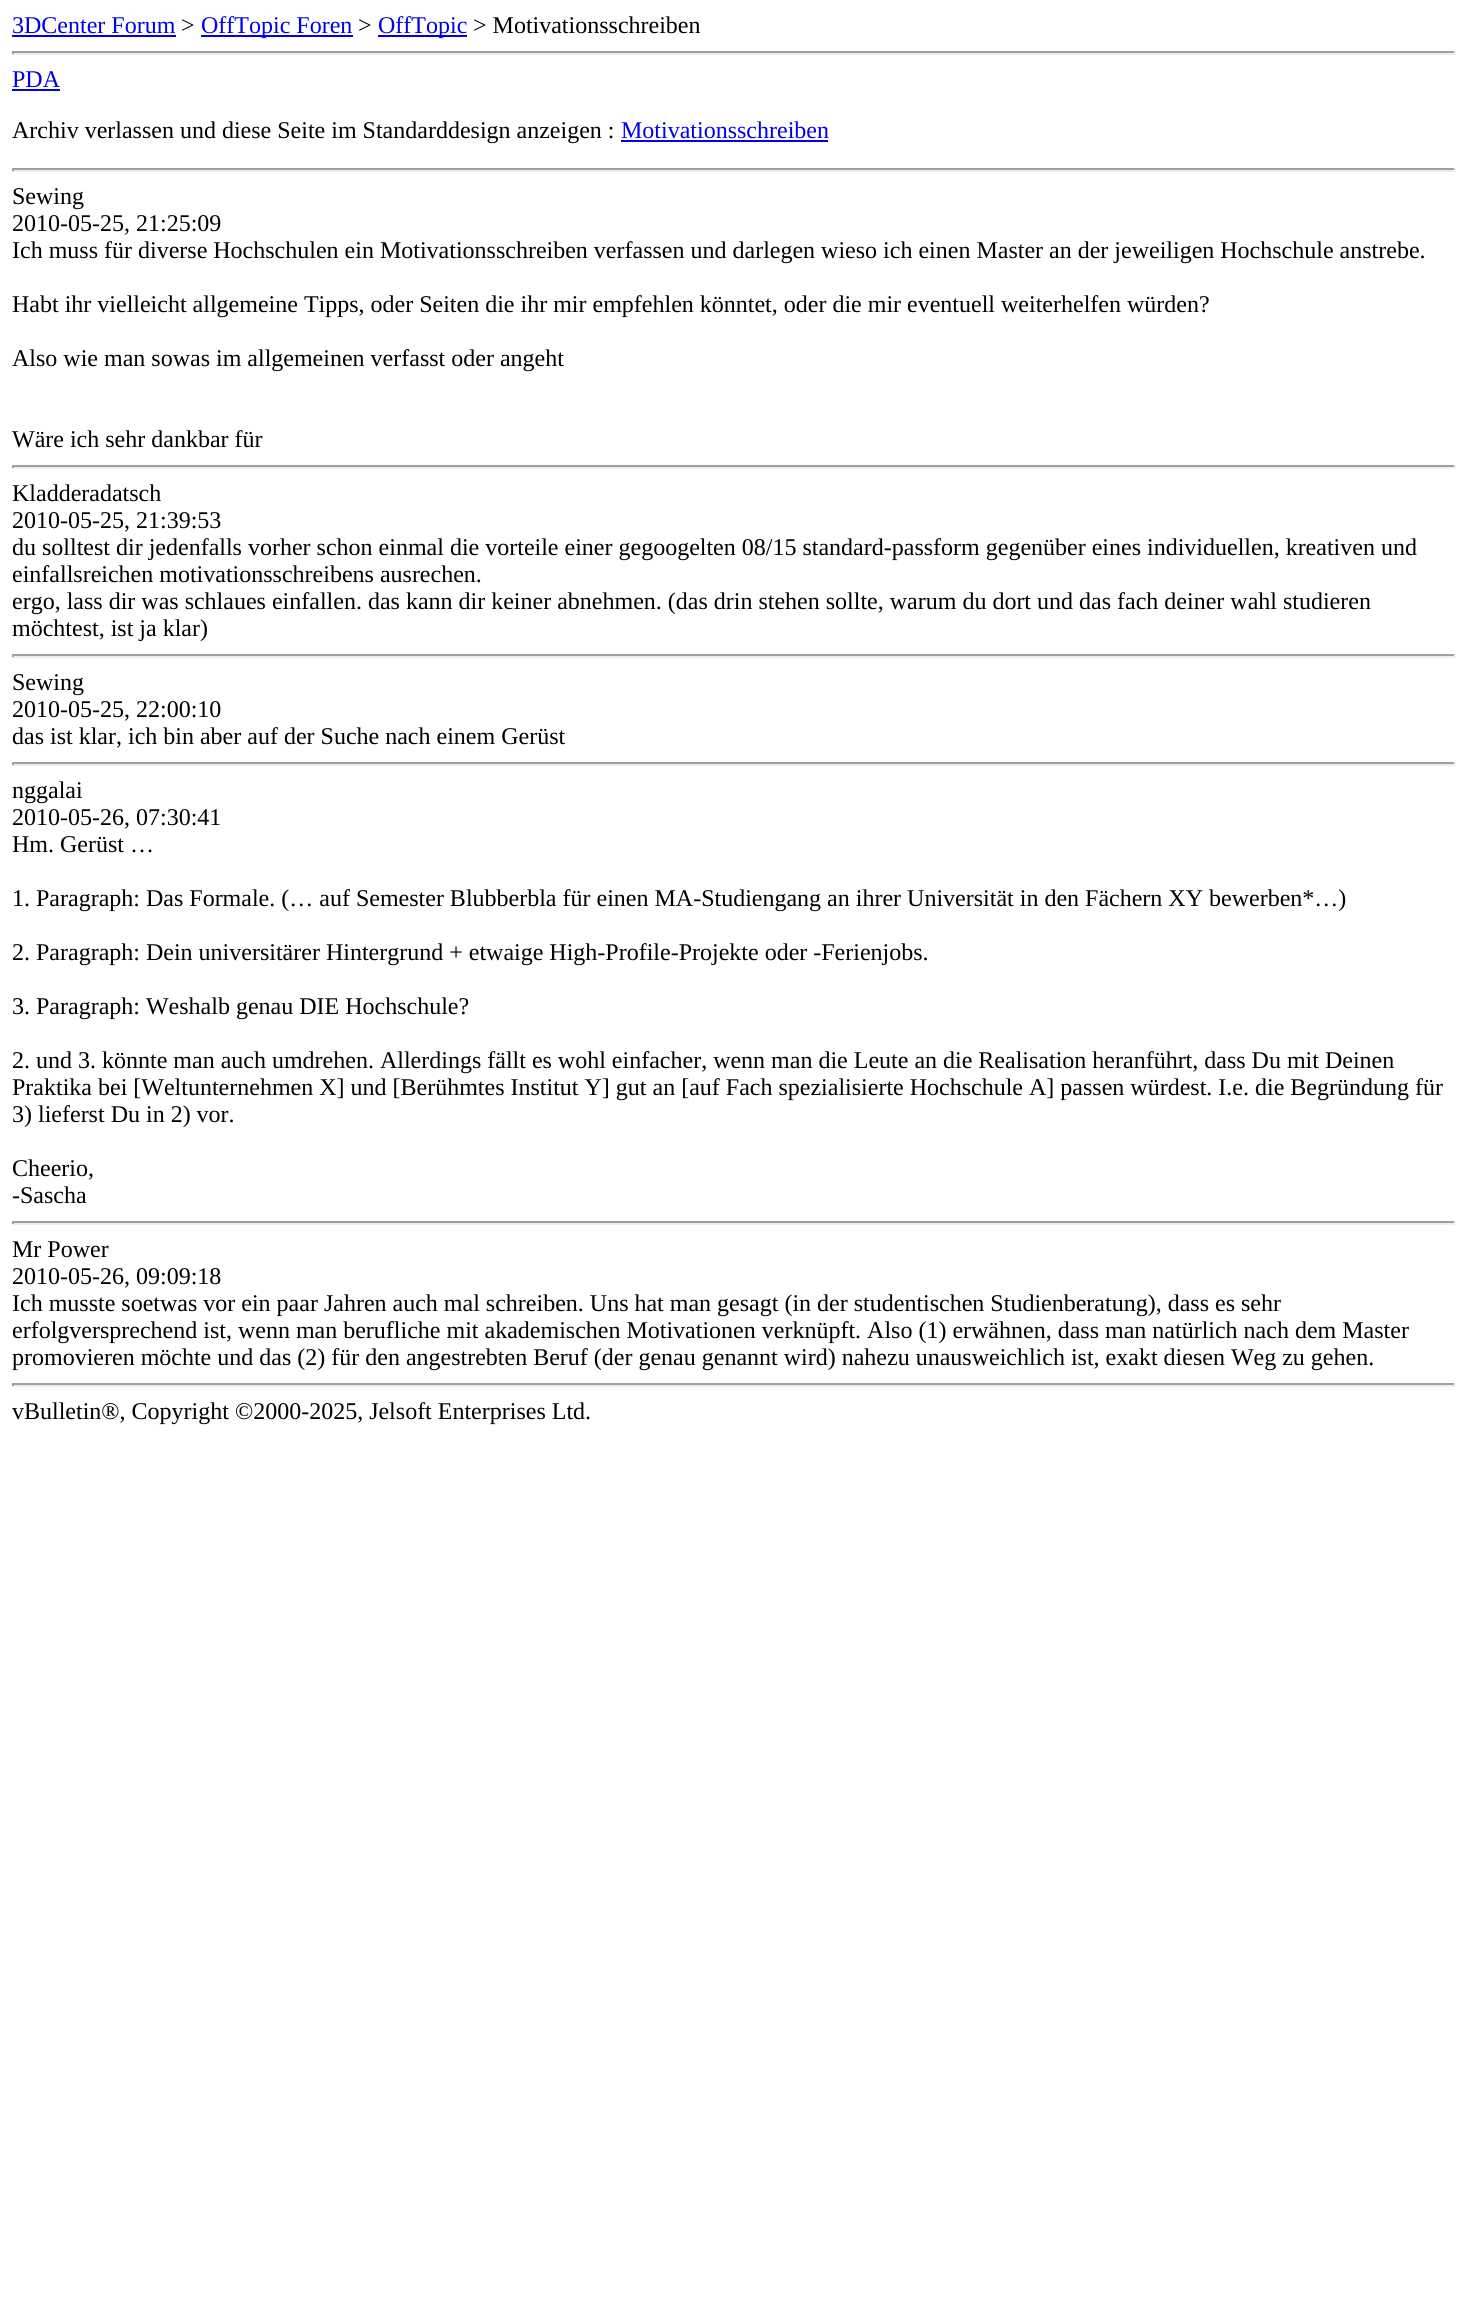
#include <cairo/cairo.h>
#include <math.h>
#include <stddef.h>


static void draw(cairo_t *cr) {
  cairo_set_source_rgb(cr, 1, 1, 1);
  cairo_paint(cr);
  cairo_set_source_rgb(cr, 0, 0, 238 / 255.0);
  cairo_rectangle(cr, 12, 35, 164, 2);
  cairo_fill(cr);
  cairo_rectangle(cr, 201, 35, 152, 2);
  cairo_fill(cr);
  cairo_rectangle(cr, 378, 35, 89, 2);
  cairo_fill(cr);
  cairo_set_source_rgb(cr, 159 / 255.0, 159 / 255.0, 159 / 255.0);
  cairo_rectangle(cr, 12, 51, 1443, 2);
  cairo_fill(cr);
  cairo_set_source_rgb(cr, 238 / 255.0, 238 / 255.0, 238 / 255.0);
  cairo_rectangle(cr, 1454, 51, 2, 3);
  cairo_fill(cr);
  cairo_rectangle(cr, 12, 53, 1443, 2);
  cairo_fill(cr);
  cairo_set_source_rgb(cr, 159 / 255.0, 159 / 255.0, 159 / 255.0);
  cairo_rectangle(cr, 12, 51, 2, 3);
  cairo_fill(cr);
  cairo_set_source_rgb(cr, 0, 0, 238 / 255.0);
  cairo_rectangle(cr, 12, 89, 48, 2);
  cairo_fill(cr);
  cairo_rectangle(cr, 621, 140, 207, 2);
  cairo_fill(cr);
  cairo_set_source_rgb(cr, 159 / 255.0, 159 / 255.0, 159 / 255.0);
  cairo_rectangle(cr, 12, 168, 1443, 2);
  cairo_fill(cr);
  cairo_set_source_rgb(cr, 238 / 255.0, 238 / 255.0, 238 / 255.0);
  cairo_rectangle(cr, 1454, 168, 2, 3);
  cairo_fill(cr);
  cairo_rectangle(cr, 12, 170, 1443, 2);
  cairo_fill(cr);
  cairo_set_source_rgb(cr, 159 / 255.0, 159 / 255.0, 159 / 255.0);
  cairo_rectangle(cr, 12, 168, 2, 3);
  cairo_fill(cr);
  cairo_rectangle(cr, 12, 465, 1443, 2);
  cairo_fill(cr);
  cairo_set_source_rgb(cr, 238 / 255.0, 238 / 255.0, 238 / 255.0);
  cairo_rectangle(cr, 1454, 465, 2, 3);
  cairo_fill(cr);
  cairo_rectangle(cr, 12, 467, 1443, 2);
  cairo_fill(cr);
  cairo_set_source_rgb(cr, 159 / 255.0, 159 / 255.0, 159 / 255.0);
  cairo_rectangle(cr, 12, 465, 2, 3);
  cairo_fill(cr);
  cairo_rectangle(cr, 12, 654, 1443, 2);
  cairo_fill(cr);
  cairo_set_source_rgb(cr, 238 / 255.0, 238 / 255.0, 238 / 255.0);
  cairo_rectangle(cr, 1454, 654, 2, 3);
  cairo_fill(cr);
  cairo_rectangle(cr, 12, 656, 1443, 2);
  cairo_fill(cr);
  cairo_set_source_rgb(cr, 159 / 255.0, 159 / 255.0, 159 / 255.0);
  cairo_rectangle(cr, 12, 654, 2, 3);
  cairo_fill(cr);
  cairo_rectangle(cr, 12, 762, 1443, 2);
  cairo_fill(cr);
  cairo_set_source_rgb(cr, 238 / 255.0, 238 / 255.0, 238 / 255.0);
  cairo_rectangle(cr, 1454, 762, 2, 3);
  cairo_fill(cr);
  cairo_rectangle(cr, 12, 764, 1443, 2);
  cairo_fill(cr);
  cairo_set_source_rgb(cr, 159 / 255.0, 159 / 255.0, 159 / 255.0);
  cairo_rectangle(cr, 12, 762, 2, 3);
  cairo_fill(cr);
  cairo_rectangle(cr, 12, 1221, 1443, 2);
  cairo_fill(cr);
  cairo_set_source_rgb(cr, 238 / 255.0, 238 / 255.0, 238 / 255.0);
  cairo_rectangle(cr, 1454, 1221, 2, 3);
  cairo_fill(cr);
  cairo_rectangle(cr, 12, 1223, 1443, 2);
  cairo_fill(cr);
  cairo_set_source_rgb(cr, 159 / 255.0, 159 / 255.0, 159 / 255.0);
  cairo_rectangle(cr, 12, 1221, 2, 3);
  cairo_fill(cr);
  cairo_rectangle(cr, 12, 1383, 1443, 2);
  cairo_fill(cr);
  cairo_set_source_rgb(cr, 238 / 255.0, 238 / 255.0, 238 / 255.0);
  cairo_rectangle(cr, 1454, 1383, 2, 3);
  cairo_fill(cr);
  cairo_rectangle(cr, 12, 1385, 1443, 2);
  cairo_fill(cr);
  cairo_set_source_rgb(cr, 159 / 255.0, 159 / 255.0, 159 / 255.0);
  cairo_rectangle(cr, 12, 1383, 2, 3);
  cairo_fill(cr);
  cairo_select_font_face(cr, "Liberation Serif", CAIRO_FONT_SLANT_NORMAL, CAIRO_FONT_WEIGHT_NORMAL);
  cairo_set_font_size(cr, 24);
  cairo_set_source_rgb(cr, 0, 0, 238 / 255.0);
  cairo_move_to(cr, 12, 33);
  cairo_show_text(cr, "3DCenter Forum");
  cairo_set_source_rgb(cr, 0, 0, 0);
  cairo_move_to(cr, 181, 33);
  cairo_show_text(cr, ">");
  cairo_set_source_rgb(cr, 0, 0, 238 / 255.0);
  cairo_move_to(cr, 201, 33);
  cairo_show_text(cr, "OffTopic Foren");
  cairo_set_source_rgb(cr, 0, 0, 0);
  cairo_move_to(cr, 358, 33);
  cairo_show_text(cr, ">");
  cairo_set_source_rgb(cr, 0, 0, 238 / 255.0);
  cairo_move_to(cr, 378, 33);
  cairo_show_text(cr, "OffTopic");
  cairo_set_source_rgb(cr, 0, 0, 0);
  cairo_move_to(cr, 473, 33);
  cairo_show_text(cr, "> Motivationsschreiben");
  cairo_set_source_rgb(cr, 0, 0, 238 / 255.0);
  cairo_move_to(cr, 12, 87);
  cairo_show_text(cr, "PDA");
  cairo_set_source_rgb(cr, 0, 0, 0);
  cairo_move_to(cr, 12, 138);
  cairo_show_text(cr, "Archiv verlassen und diese Seite im Standarddesign anzeigen :");
  cairo_set_source_rgb(cr, 0, 0, 238 / 255.0);
  cairo_move_to(cr, 621, 138);
  cairo_show_text(cr, "Motivationsschreiben");
  cairo_set_source_rgb(cr, 0, 0, 0);
  cairo_move_to(cr, 12, 204);
  cairo_show_text(cr, "Sewing");
  cairo_move_to(cr, 12, 231);
  cairo_show_text(cr, "2010-05-25, 21:25:09");
  cairo_move_to(cr, 12, 258);
  cairo_show_text(cr, "Ich muss für diverse Hochschulen ein Motivationsschreiben verfassen und darlegen wieso ich einen Master an der jeweiligen Hochschule anstrebe.");
  cairo_move_to(cr, 12, 312);
  cairo_show_text(cr, "Habt ihr vielleicht allgemeine Tipps, oder Seiten die ihr mir empfehlen könntet, oder die mir eventuell weiterhelfen würden?");
  cairo_move_to(cr, 12, 366);
  cairo_show_text(cr, "Also wie man sowas im allgemeinen verfasst oder angeht");
  cairo_move_to(cr, 12, 447);
  cairo_show_text(cr, "Wäre ich sehr dankbar für");
  cairo_move_to(cr, 12, 501);
  cairo_show_text(cr, "Kladderadatsch");
  cairo_move_to(cr, 12, 528);
  cairo_show_text(cr, "2010-05-25, 21:39:53");
  cairo_move_to(cr, 12, 555);
  cairo_show_text(cr, "du solltest dir jedenfalls vorher schon einmal die vorteile einer gegoogelten 08/15 standard-passform gegenüber eines individuellen, kreativen und");
  cairo_move_to(cr, 12, 582);
  cairo_show_text(cr, "einfallsreichen motivationsschreibens ausrechen.");
  cairo_move_to(cr, 12, 609);
  cairo_show_text(cr, "ergo, lass dir was schlaues einfallen. das kann dir keiner abnehmen. (das drin stehen sollte, warum du dort und das fach deiner wahl studieren");
  cairo_move_to(cr, 12, 636);
  cairo_show_text(cr, "möchtest, ist ja klar)");
  cairo_move_to(cr, 12, 690);
  cairo_show_text(cr, "Sewing");
  cairo_move_to(cr, 12, 717);
  cairo_show_text(cr, "2010-05-25, 22:00:10");
  cairo_move_to(cr, 12, 744);
  cairo_show_text(cr, "das ist klar, ich bin aber auf der Suche nach einem Gerüst");
  cairo_move_to(cr, 12, 798);
  cairo_show_text(cr, "nggalai");
  cairo_move_to(cr, 12, 825);
  cairo_show_text(cr, "2010-05-26, 07:30:41");
  cairo_move_to(cr, 12, 852);
  cairo_show_text(cr, "Hm. Gerüst …");
  cairo_move_to(cr, 12, 906);
  cairo_show_text(cr, "1. Paragraph: Das Formale. (… auf Semester Blubberbla für einen MA-Studiengang an ihrer Universität in den Fächern XY bewerben*…)");
  cairo_move_to(cr, 12, 960);
  cairo_show_text(cr, "2. Paragraph: Dein universitärer Hintergrund + etwaige High-Profile-Projekte oder -Ferienjobs.");
  cairo_move_to(cr, 12, 1014);
  cairo_show_text(cr, "3. Paragraph: Weshalb genau DIE Hochschule?");
  cairo_move_to(cr, 12, 1068);
  cairo_show_text(cr, "2. und 3. könnte man auch umdrehen. Allerdings fällt es wohl einfacher, wenn man die Leute an die Realisation heranführt, dass Du mit Deinen");
  cairo_move_to(cr, 12, 1095);
  cairo_show_text(cr, "Praktika bei [Weltunternehmen X] und [Berühmtes Institut Y] gut an [auf Fach spezialisierte Hochschule A] passen würdest. I.e. die Begründung für");
  cairo_move_to(cr, 12, 1122);
  cairo_show_text(cr, "3) lieferst Du in 2) vor.");
  cairo_move_to(cr, 12, 1176);
  cairo_show_text(cr, "Cheerio,");
  cairo_move_to(cr, 12, 1203);
  cairo_show_text(cr, "-Sascha");
  cairo_move_to(cr, 12, 1257);
  cairo_show_text(cr, "Mr Power");
  cairo_move_to(cr, 12, 1284);
  cairo_show_text(cr, "2010-05-26, 09:09:18");
  cairo_move_to(cr, 12, 1311);
  cairo_show_text(cr, "Ich musste soetwas vor ein paar Jahren auch mal schreiben. Uns hat man gesagt (in der studentischen Studienberatung), dass es sehr");
  cairo_move_to(cr, 12, 1338);
  cairo_show_text(cr, "erfolgversprechend ist, wenn man berufliche mit akademischen Motivationen verknüpft. Also (1) erwähnen, dass man natürlich nach dem Master");
  cairo_move_to(cr, 12, 1365);
  cairo_show_text(cr, "promovieren möchte und das (2) für den angestrebten Beruf (der genau genannt wird) nahezu unausweichlich ist, exakt diesen Weg zu gehen.");
  cairo_move_to(cr, 12, 1419);
  cairo_show_text(cr, "vBulletin®, Copyright ©2000-2025, Jelsoft Enterprises Ltd.");
}

int main(void) {
  cairo_surface_t *surface = cairo_image_surface_create(CAIRO_FORMAT_RGB24, 1466, 2321);
  cairo_t *cr = cairo_create(surface);
  cairo_font_options_t *options = cairo_font_options_create();
  cairo_font_options_set_hint_metrics(options, CAIRO_HINT_METRICS_OFF);
  cairo_font_options_set_hint_style(options, CAIRO_HINT_STYLE_NONE);
  cairo_set_font_options(cr, options);
  cairo_set_miter_limit(cr, 4);
  draw(cr);
  cairo_surface_write_to_png(surface, "out.png");
  cairo_font_options_destroy(options);
  cairo_destroy(cr);
  cairo_surface_destroy(surface);
  return 0;
}
